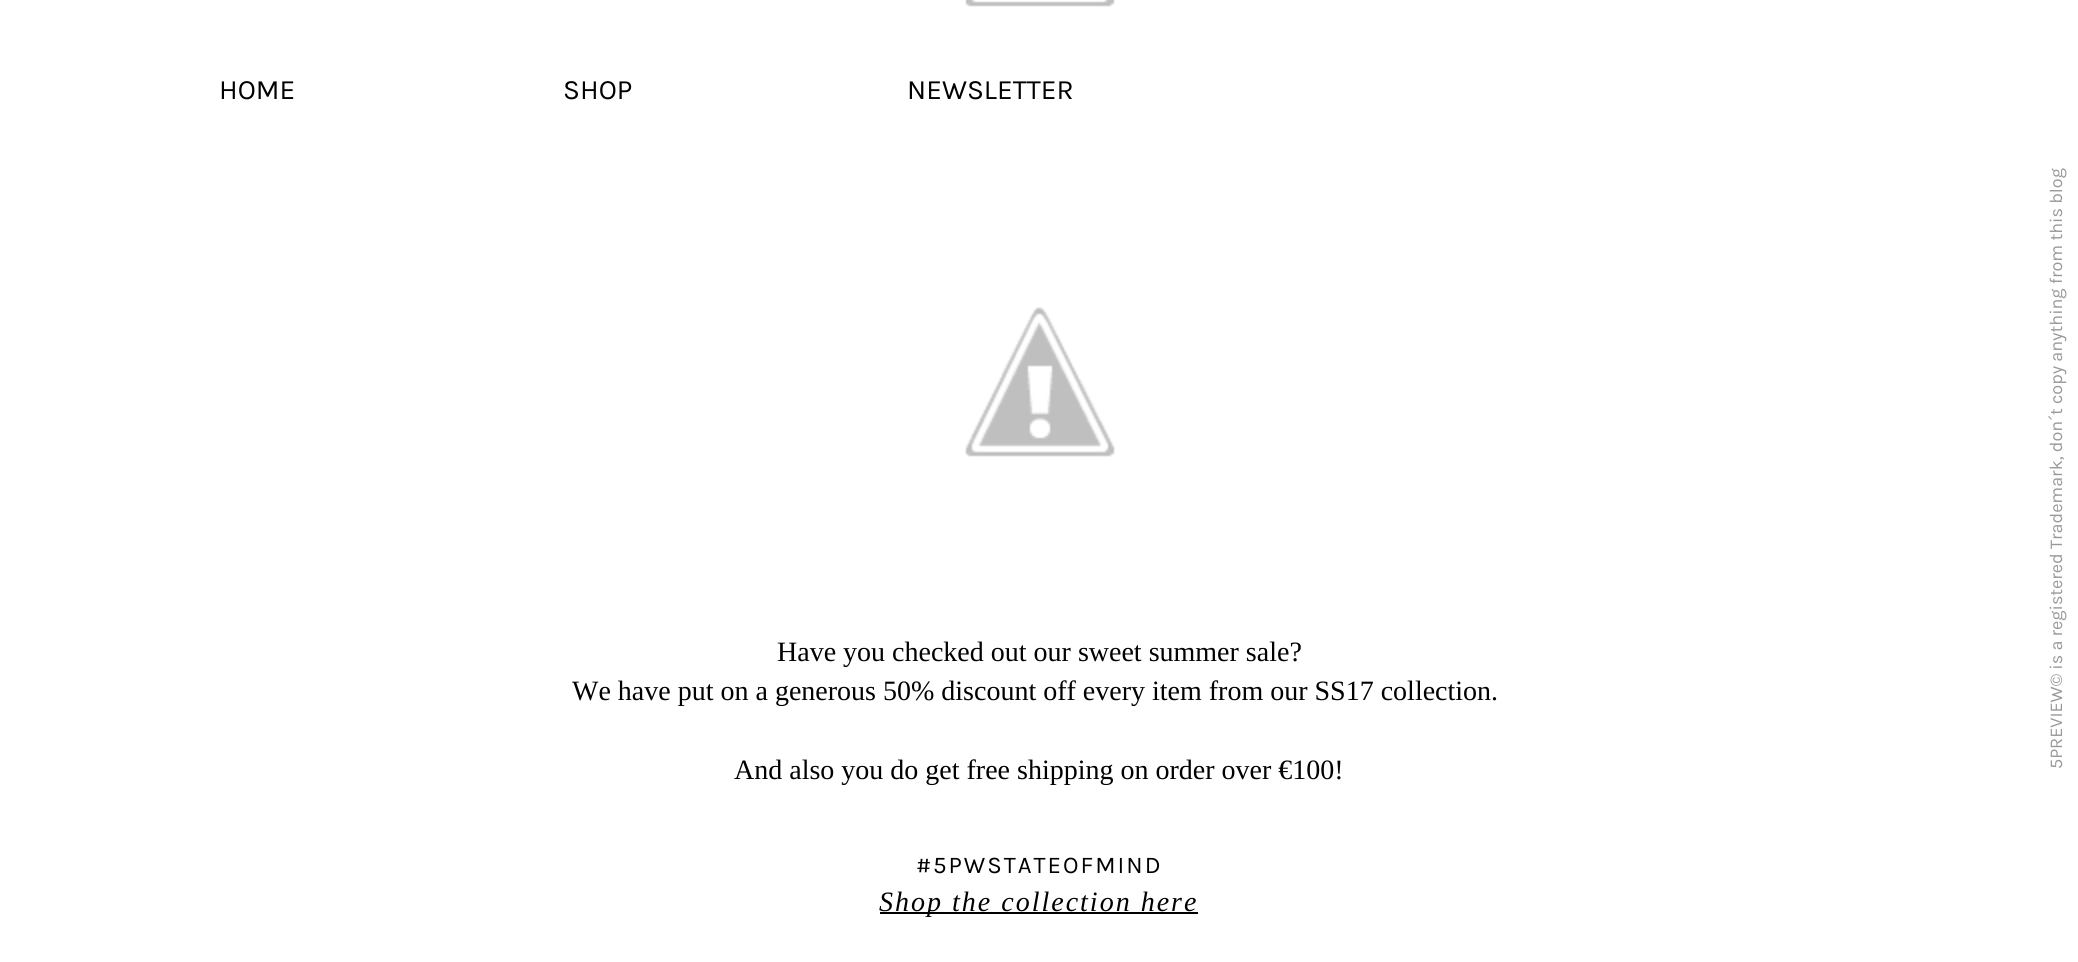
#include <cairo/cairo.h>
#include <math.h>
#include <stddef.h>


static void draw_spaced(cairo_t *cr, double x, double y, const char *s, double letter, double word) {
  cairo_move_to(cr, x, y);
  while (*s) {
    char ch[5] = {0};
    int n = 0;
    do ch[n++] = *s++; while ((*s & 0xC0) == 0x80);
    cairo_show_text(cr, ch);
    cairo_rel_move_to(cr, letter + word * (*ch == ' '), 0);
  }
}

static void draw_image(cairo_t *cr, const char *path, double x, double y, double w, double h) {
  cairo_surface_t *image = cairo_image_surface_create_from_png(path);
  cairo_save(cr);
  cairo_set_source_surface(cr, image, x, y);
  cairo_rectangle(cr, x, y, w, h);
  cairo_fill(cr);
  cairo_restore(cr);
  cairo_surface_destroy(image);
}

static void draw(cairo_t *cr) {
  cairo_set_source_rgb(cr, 1, 1, 1);
  cairo_paint(cr);
  draw_image(cr, "images/1.png", 965, 0, 150, 7);
  draw_image(cr, "images/2.png", 965, 307, 150, 150);
  cairo_set_source_rgb(cr, 0, 0, 0);
  cairo_rectangle(cr, 880, 912, 318, 2);
  cairo_fill(cr);
  cairo_select_font_face(cr, "Karla", CAIRO_FONT_SLANT_NORMAL, CAIRO_FONT_WEIGHT_NORMAL);
  cairo_set_font_size(cr, 28);
  cairo_move_to(cr, 219, 99);
  cairo_show_text(cr, "HOME");
  cairo_move_to(cr, 563, 99);
  cairo_show_text(cr, "SHOP");
  cairo_move_to(cr, 907, 99);
  cairo_show_text(cr, "NEWSLETTER");
  cairo_select_font_face(cr, "Liberation Serif", CAIRO_FONT_SLANT_NORMAL, CAIRO_FONT_WEIGHT_NORMAL);
  cairo_move_to(cr, 777, 661);
  cairo_show_text(cr, "Have you checked out our sweet summer sale?");
  cairo_move_to(cr, 572, 700);
  cairo_show_text(cr, "We have put on a generous 50% discount off every item from our SS17 collection.");
  cairo_move_to(cr, 734, 779);
  cairo_show_text(cr, "And also you do get free shipping on order over €100!");
  cairo_select_font_face(cr, "Karla", CAIRO_FONT_SLANT_NORMAL, CAIRO_FONT_WEIGHT_NORMAL);
  cairo_set_font_size(cr, 24);
  draw_spaced(cr, 916, 873, "#5PWSTATEOFMIND", 2, 0);
  cairo_select_font_face(cr, "Liberation Serif", CAIRO_FONT_SLANT_ITALIC, CAIRO_FONT_WEIGHT_NORMAL);
  cairo_set_font_size(cr, 28);
  draw_spaced(cr, 879, 911, "Shop the collection here", 2, 0);
  cairo_select_font_face(cr, "Karla", CAIRO_FONT_SLANT_NORMAL, CAIRO_FONT_WEIGHT_NORMAL);
  cairo_set_font_size(cr, 18);
  cairo_set_source_rgb(cr, 153 / 255.0, 153 / 255.0, 153 / 255.0);
  cairo_save(cr);
  cairo_translate(cr, 2062, 769);
  cairo_rotate(cr, -90 * M_PI / 180);
  cairo_move_to(cr, 0, 0);
  cairo_show_text(cr, "5PREVIEW© is a registered Trademark, don´t copy anything from this blog");
  cairo_restore(cr);
}

int main(void) {
  cairo_surface_t *surface = cairo_image_surface_create(CAIRO_FORMAT_RGB24, 2078, 962);
  cairo_t *cr = cairo_create(surface);
  cairo_font_options_t *options = cairo_font_options_create();
  cairo_font_options_set_hint_metrics(options, CAIRO_HINT_METRICS_OFF);
  cairo_font_options_set_hint_style(options, CAIRO_HINT_STYLE_NONE);
  cairo_set_font_options(cr, options);
  cairo_set_miter_limit(cr, 4);
  draw(cr);
  cairo_surface_write_to_png(surface, "out.png");
  cairo_font_options_destroy(options);
  cairo_destroy(cr);
  cairo_surface_destroy(surface);
  return 0;
}
